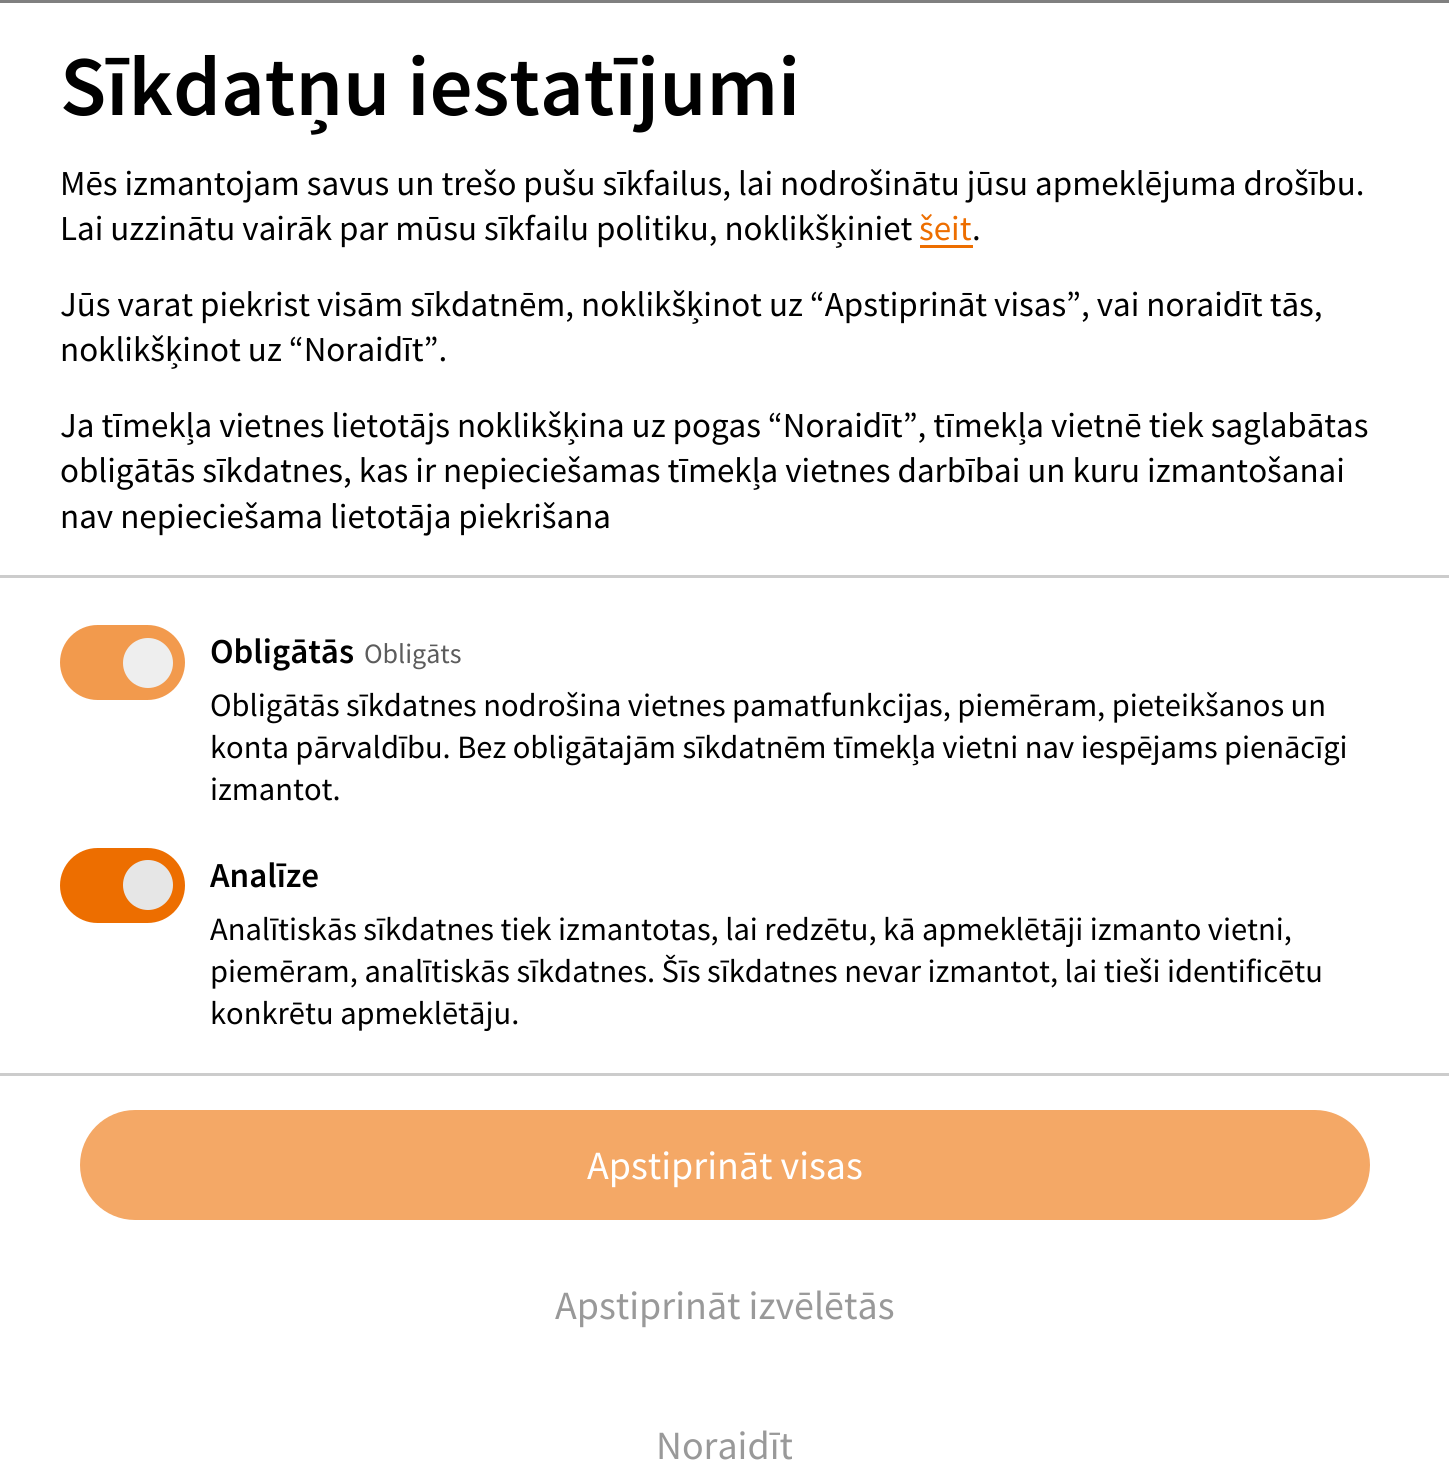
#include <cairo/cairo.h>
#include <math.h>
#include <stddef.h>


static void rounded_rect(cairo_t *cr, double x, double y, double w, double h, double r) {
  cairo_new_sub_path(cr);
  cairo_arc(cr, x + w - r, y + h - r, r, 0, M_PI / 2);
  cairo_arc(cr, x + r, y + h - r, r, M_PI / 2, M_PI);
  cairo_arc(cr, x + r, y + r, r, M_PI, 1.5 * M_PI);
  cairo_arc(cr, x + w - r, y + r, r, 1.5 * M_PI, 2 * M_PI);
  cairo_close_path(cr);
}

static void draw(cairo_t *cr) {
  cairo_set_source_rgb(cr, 128 / 255.0, 128 / 255.0, 128 / 255.0);
  cairo_paint(cr);
  cairo_set_source_rgb(cr, 1, 1, 1);
  cairo_rectangle(cr, 0, 3, 1449, 1479);
  cairo_fill(cr);
  cairo_set_source_rgb(cr, 204 / 255.0, 204 / 255.0, 204 / 255.0);
  cairo_rectangle(cr, 0, 575, 1449, 3);
  cairo_fill(cr);
  cairo_set_source_rgb(cr, 237 / 255.0, 110 / 255.0, 0);
  cairo_rectangle(cr, 920, 245, 53, 3);
  cairo_fill(cr);
  cairo_set_source_rgb(cr, 204 / 255.0, 204 / 255.0, 204 / 255.0);
  cairo_rectangle(cr, 0, 1073, 1449, 3);
  cairo_fill(cr);
  cairo_set_source_rgb(cr, 242 / 255.0, 154 / 255.0, 77 / 255.0);
  rounded_rect(cr, 60, 625, 125, 75, 37.5);
  cairo_fill(cr);
  cairo_set_source_rgb(cr, 238 / 255.0, 238 / 255.0, 238 / 255.0);
  cairo_arc(cr, 148, 663, 25, 0, 2 * M_PI);
  cairo_fill(cr);
  cairo_set_source_rgb(cr, 237 / 255.0, 110 / 255.0, 0);
  rounded_rect(cr, 60, 848, 125, 75, 37.5);
  cairo_fill(cr);
  cairo_set_source_rgb(cr, 230 / 255.0, 230 / 255.0, 230 / 255.0);
  cairo_arc(cr, 148, 885, 25, 0, 2 * M_PI);
  cairo_fill(cr);
  cairo_set_source_rgb(cr, 244 / 255.0, 168 / 255.0, 102 / 255.0);
  rounded_rect(cr, 80, 1110, 1290, 110, 55);
  cairo_fill(cr);
  cairo_select_font_face(cr, "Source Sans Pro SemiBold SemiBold", CAIRO_FONT_SLANT_NORMAL, CAIRO_FONT_WEIGHT_NORMAL);
  cairo_set_font_size(cr, 85);
  cairo_set_source_rgb(cr, 0, 0, 0);
  cairo_move_to(cr, 60, 115);
  cairo_show_text(cr, "Sīkdatņu iestatījumi");
  cairo_select_font_face(cr, "Source Sans Pro", CAIRO_FONT_SLANT_NORMAL, CAIRO_FONT_WEIGHT_NORMAL);
  cairo_set_font_size(cr, 35);
  cairo_move_to(cr, 60, 195);
  cairo_show_text(cr, "Mēs izmantojam savus un trešo pušu sīkfailus, lai nodrošinātu jūsu apmeklējuma drošību.");
  cairo_move_to(cr, 60, 240);
  cairo_show_text(cr, "Lai uzzinātu vairāk par mūsu sīkfailu politiku, noklikšķiniet");
  cairo_set_source_rgb(cr, 237 / 255.0, 110 / 255.0, 0);
  cairo_move_to(cr, 919, 240);
  cairo_show_text(cr, "šeit");
  cairo_set_source_rgb(cr, 0, 0, 0);
  cairo_move_to(cr, 972, 240);
  cairo_show_text(cr, ".");
  cairo_move_to(cr, 60, 316);
  cairo_show_text(cr, "Jūs varat piekrist visām sīkdatnēm, noklikšķinot uz “Apstiprināt visas”, vai noraidīt tās,");
  cairo_move_to(cr, 60, 361);
  cairo_show_text(cr, "noklikšķinot uz “Noraidīt”.");
  cairo_move_to(cr, 60, 437);
  cairo_show_text(cr, "Ja tīmekļa vietnes lietotājs noklikšķina uz pogas “Noraidīt”, tīmekļa vietnē tiek saglabātas");
  cairo_move_to(cr, 60, 482);
  cairo_show_text(cr, "obligātās sīkdatnes, kas ir nepieciešamas tīmekļa vietnes darbībai un kuru izmantošanai");
  cairo_move_to(cr, 60, 528);
  cairo_show_text(cr, "nav nepieciešama lietotāja piekrišana");
  cairo_select_font_face(cr, "Source Sans Pro SemiBold SemiBold", CAIRO_FONT_SLANT_NORMAL, CAIRO_FONT_WEIGHT_NORMAL);
  cairo_move_to(cr, 210, 663);
  cairo_show_text(cr, "Obligātās");
  cairo_select_font_face(cr, "Source Sans Pro", CAIRO_FONT_SLANT_NORMAL, CAIRO_FONT_WEIGHT_NORMAL);
  cairo_set_font_size(cr, 28);
  cairo_set_source_rgb(cr, 92 / 255.0, 92 / 255.0, 92 / 255.0);
  cairo_move_to(cr, 364, 663);
  cairo_show_text(cr, "Obligāts");
  cairo_set_font_size(cr, 32.5);
  cairo_set_source_rgb(cr, 0, 0, 0);
  cairo_move_to(cr, 210, 716);
  cairo_show_text(cr, "Obligātās sīkdatnes nodrošina vietnes pamatfunkcijas, piemēram, pieteikšanos un");
  cairo_move_to(cr, 210, 758);
  cairo_show_text(cr, "konta pārvaldību. Bez obligātajām sīkdatnēm tīmekļa vietni nav iespējams pienācīgi");
  cairo_move_to(cr, 210, 800);
  cairo_show_text(cr, "izmantot.");
  cairo_select_font_face(cr, "Source Sans Pro SemiBold SemiBold", CAIRO_FONT_SLANT_NORMAL, CAIRO_FONT_WEIGHT_NORMAL);
  cairo_set_font_size(cr, 35);
  cairo_move_to(cr, 210, 887);
  cairo_show_text(cr, "Analīze");
  cairo_select_font_face(cr, "Source Sans Pro", CAIRO_FONT_SLANT_NORMAL, CAIRO_FONT_WEIGHT_NORMAL);
  cairo_set_font_size(cr, 32.5);
  cairo_move_to(cr, 210, 940);
  cairo_show_text(cr, "Analītiskās sīkdatnes tiek izmantotas, lai redzētu, kā apmeklētāji izmanto vietni,");
  cairo_move_to(cr, 210, 982);
  cairo_show_text(cr, "piemēram, analītiskās sīkdatnes. Šīs sīkdatnes nevar izmantot, lai tieši identificētu");
  cairo_move_to(cr, 210, 1024);
  cairo_show_text(cr, "konkrētu apmeklētāju.");
  cairo_set_font_size(cr, 40);
  cairo_set_source_rgb(cr, 1, 1, 1);
  cairo_move_to(cr, 587, 1179);
  cairo_show_text(cr, "Apstiprināt visas");
  cairo_set_source_rgb(cr, 153 / 255.0, 153 / 255.0, 153 / 255.0);
  cairo_move_to(cr, 555, 1319);
  cairo_show_text(cr, "Apstiprināt izvēlētās");
  cairo_move_to(cr, 656, 1459);
  cairo_show_text(cr, "Noraidīt");
}

int main(void) {
  cairo_surface_t *surface = cairo_image_surface_create(CAIRO_FORMAT_RGB24, 1449, 1482);
  cairo_t *cr = cairo_create(surface);
  cairo_font_options_t *options = cairo_font_options_create();
  cairo_font_options_set_hint_metrics(options, CAIRO_HINT_METRICS_OFF);
  cairo_font_options_set_hint_style(options, CAIRO_HINT_STYLE_NONE);
  cairo_set_font_options(cr, options);
  cairo_set_miter_limit(cr, 4);
  draw(cr);
  cairo_surface_write_to_png(surface, "out.png");
  cairo_font_options_destroy(options);
  cairo_destroy(cr);
  cairo_surface_destroy(surface);
  return 0;
}
